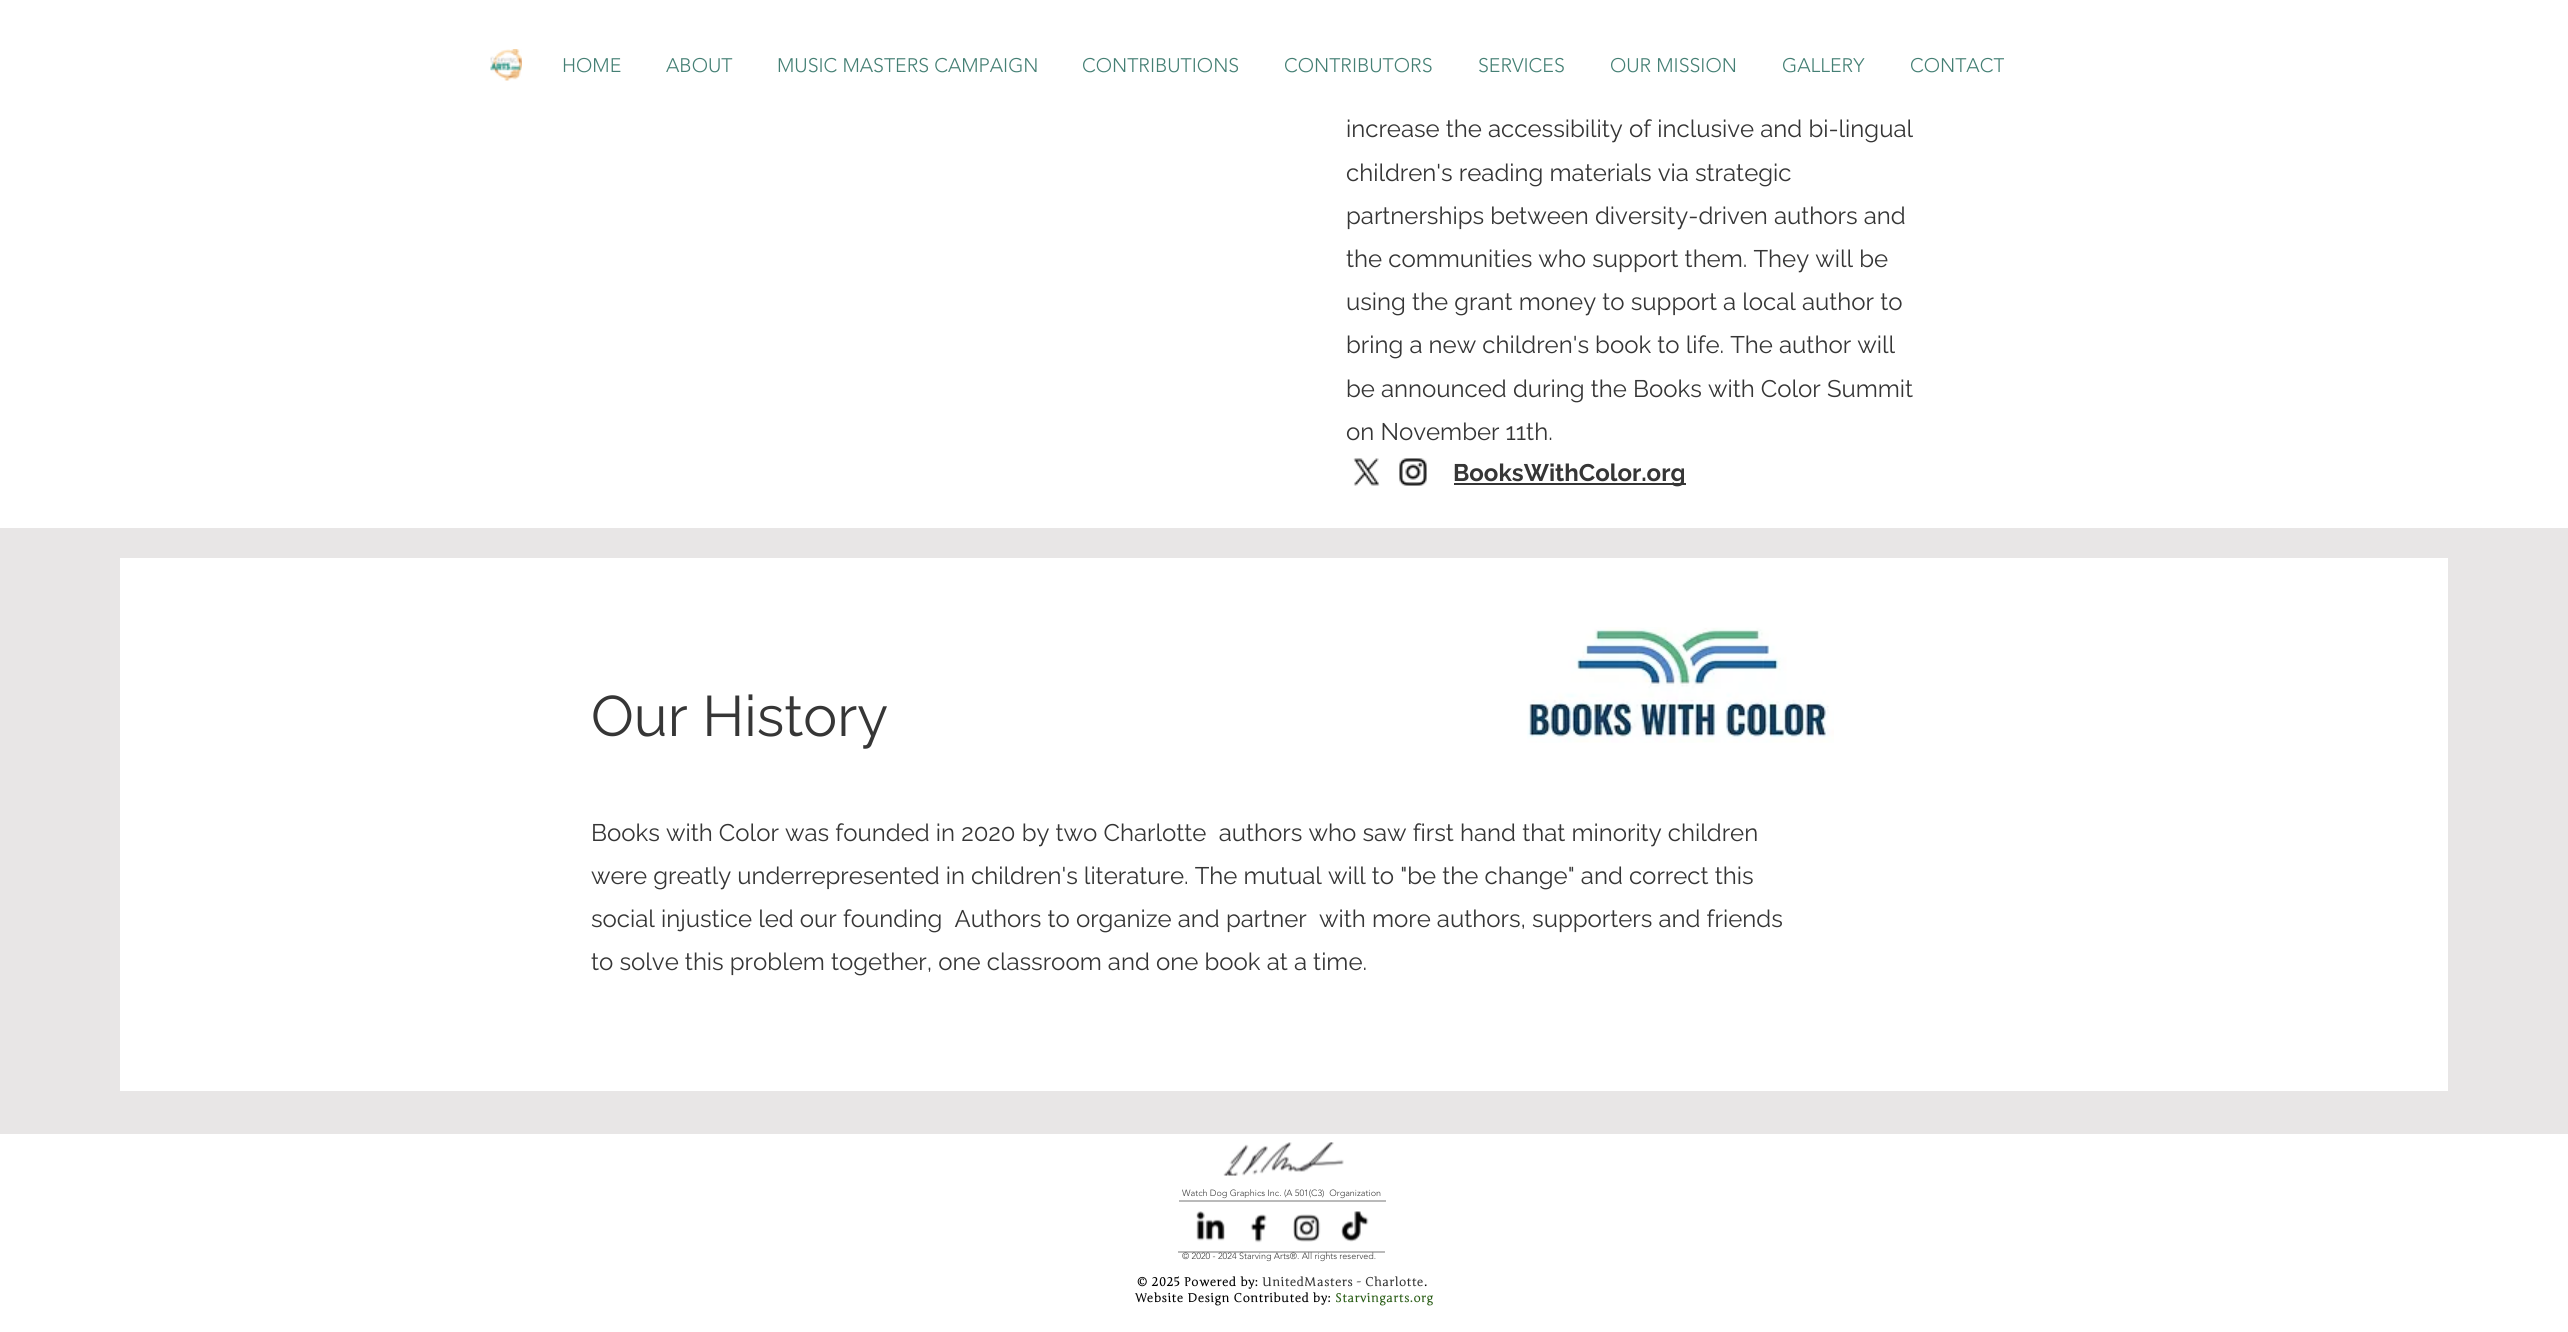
#include <cairo/cairo.h>
#include <math.h>
#include <stddef.h>


static void draw_spaced(cairo_t *cr, double x, double y, const char *s, double letter, double word) {
  cairo_move_to(cr, x, y);
  while (*s) {
    char ch[5] = {0};
    int n = 0;
    do ch[n++] = *s++; while ((*s & 0xC0) == 0x80);
    cairo_show_text(cr, ch);
    cairo_rel_move_to(cr, letter + word * (*ch == ' '), 0);
  }
}

static void draw_image(cairo_t *cr, const char *path, double x, double y, double w, double h) {
  cairo_surface_t *image = cairo_image_surface_create_from_png(path);
  cairo_save(cr);
  cairo_set_source_surface(cr, image, x, y);
  cairo_rectangle(cr, x, y, w, h);
  cairo_fill(cr);
  cairo_restore(cr);
  cairo_surface_destroy(image);
}

static void draw(cairo_t *cr) {
  cairo_set_source_rgb(cr, 232 / 255.0, 230 / 255.0, 230 / 255.0);
  cairo_paint(cr);
  cairo_set_source_rgb(cr, 1, 1, 1);
  cairo_rectangle(cr, 0, 0, 2568, 528);
  cairo_fill(cr);
  draw_image(cr, "images/1.png", 490, 49, 32, 32);
  draw_image(cr, "images/2.png", 1353, 458, 27, 28);
  draw_image(cr, "images/3.png", 1399, 458, 28, 28);
  cairo_set_source_rgb(cr, 54 / 255.0, 54 / 255.0, 54 / 255.0);
  cairo_rectangle(cr, 1454, 483, 232, 2);
  cairo_fill(cr);
  cairo_set_source_rgb(cr, 1, 1, 1);
  cairo_rectangle(cr, 120, 558, 2328, 533);
  cairo_fill(cr);
  draw_image(cr, "images/4.png", 1527, 627, 307, 116);
  cairo_rectangle(cr, 0, 1134, 2568, 198);
  cairo_fill(cr);
  draw_image(cr, "images/5.png", 1223, 1142, 121, 34);
  cairo_set_source_rgb(cr, 186 / 255.0, 186 / 255.0, 186 / 255.0);
  cairo_rectangle(cr, 1179, 1200, 207, 2);
  cairo_fill(cr);
  draw_image(cr, "images/6.png", 1196, 1211, 29, 30);
  draw_image(cr, "images/7.png", 1250, 1214, 17, 29);
  draw_image(cr, "images/8.png", 1293, 1214, 28, 28);
  draw_image(cr, "images/9.png", 1341, 1211, 28, 31);
  cairo_rectangle(cr, 1178, 1251, 207, 2);
  cairo_fill(cr);
  cairo_select_font_face(cr, "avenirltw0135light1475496 Light", CAIRO_FONT_SLANT_NORMAL, CAIRO_FONT_WEIGHT_NORMAL);
  cairo_set_font_size(cr, 19.5);
  cairo_set_source_rgb(cr, 68 / 255.0, 127 / 255.0, 116 / 255.0);
  cairo_move_to(cr, 562, 72);
  cairo_show_text(cr, "HOME");
  cairo_move_to(cr, 666, 72);
  cairo_show_text(cr, "ABOUT");
  cairo_move_to(cr, 777, 72);
  cairo_show_text(cr, "MUSIC MASTERS CAMPAIGN");
  cairo_move_to(cr, 1082, 72);
  cairo_show_text(cr, "CONTRIBUTIONS");
  cairo_move_to(cr, 1284, 72);
  cairo_show_text(cr, "CONTRIBUTORS");
  cairo_move_to(cr, 1478, 72);
  cairo_show_text(cr, "SERVICES");
  cairo_move_to(cr, 1610, 72);
  cairo_show_text(cr, "OUR MISSION");
  cairo_move_to(cr, 1782, 72);
  cairo_show_text(cr, "GALLERY");
  cairo_move_to(cr, 1910, 72);
  cairo_show_text(cr, "CONTACT");
  cairo_select_font_face(cr, "Raleway", CAIRO_FONT_SLANT_NORMAL, CAIRO_FONT_WEIGHT_NORMAL);
  cairo_set_font_size(cr, 24);
  cairo_set_source_rgb(cr, 54 / 255.0, 54 / 255.0, 54 / 255.0);
  cairo_move_to(cr, 1346, 137);
  cairo_show_text(cr, "increase the accessibility of inclusive and bi-lingual");
  cairo_move_to(cr, 1346, 181);
  cairo_show_text(cr, "children's reading materials via strategic");
  cairo_move_to(cr, 1346, 224);
  cairo_show_text(cr, "partnerships between diversity-driven authors and");
  cairo_move_to(cr, 1346, 267);
  cairo_show_text(cr, "the communities who support them. They will be");
  cairo_move_to(cr, 1346, 310);
  cairo_show_text(cr, "using the grant money to support a local author to");
  cairo_move_to(cr, 1346, 353);
  cairo_show_text(cr, "bring a new children's book to life. The author will");
  cairo_move_to(cr, 1346, 397);
  cairo_show_text(cr, "be announced during the Books with Color Summit");
  cairo_move_to(cr, 1346, 440);
  cairo_show_text(cr, "on November 11th.");
  cairo_select_font_face(cr, "Raleway", CAIRO_FONT_SLANT_NORMAL, CAIRO_FONT_WEIGHT_BOLD);
  cairo_move_to(cr, 1453, 481);
  cairo_show_text(cr, "BooksWithColor.org");
  cairo_select_font_face(cr, "Raleway", CAIRO_FONT_SLANT_NORMAL, CAIRO_FONT_WEIGHT_NORMAL);
  cairo_set_font_size(cr, 57);
  cairo_move_to(cr, 591, 736);
  cairo_show_text(cr, "Our History");
  cairo_set_font_size(cr, 24);
  cairo_move_to(cr, 591, 841);
  cairo_show_text(cr, "Books with Color was founded in 2020 by two Charlotte  authors who saw first hand that minority children");
  cairo_move_to(cr, 591, 884);
  cairo_show_text(cr, "were greatly underrepresented in children's literature. The mutual will to \"be the change\" and correct this");
  cairo_move_to(cr, 591, 927);
  cairo_show_text(cr, "social injustice led our founding  Authors to organize and partner  with more authors, supporters and friends");
  cairo_move_to(cr, 591, 970);
  cairo_show_text(cr, "to solve this problem together, one classroom and one book at a time.");
  cairo_select_font_face(cr, "avenirltw0135light1475496 Light", CAIRO_FONT_SLANT_NORMAL, CAIRO_FONT_WEIGHT_NORMAL);
  cairo_set_font_size(cr, 9);
  cairo_move_to(cr, 1182, 1196);
  cairo_show_text(cr, "Watch Dog Graphics Inc. (A 501(C3)  Organization");
  cairo_move_to(cr, 1182, 1259);
  cairo_show_text(cr, "© 2020 - 2024 Starving Arts®. All rights reserved.");
  cairo_select_font_face(cr, "Junge", CAIRO_FONT_SLANT_NORMAL, CAIRO_FONT_WEIGHT_BOLD);
  cairo_set_font_size(cr, 12);
  cairo_set_source_rgb(cr, 0, 0, 0);
  draw_spaced(cr, 1137, 1286, "© 2025 Powered by:", 0.6, 0);
  cairo_set_source_rgb(cr, 54 / 255.0, 54 / 255.0, 54 / 255.0);
  draw_spaced(cr, 1262, 1286, "UnitedMasters - Charlotte", 0.6, 0);
  cairo_set_source_rgb(cr, 0, 0, 0);
  draw_spaced(cr, 1424, 1286, ".", 0.6, 0);
  draw_spaced(cr, 1135, 1302, "Website Design Contributed by:", 0.6, 0);
  cairo_set_source_rgb(cr, 42 / 255.0, 93 / 255.0, 22 / 255.0);
  draw_spaced(cr, 1335, 1302, "Starvingarts.org", 0.6, 0);
}

int main(void) {
  cairo_surface_t *surface = cairo_image_surface_create(CAIRO_FORMAT_RGB24, 2568, 1332);
  cairo_t *cr = cairo_create(surface);
  cairo_font_options_t *options = cairo_font_options_create();
  cairo_font_options_set_hint_metrics(options, CAIRO_HINT_METRICS_OFF);
  cairo_font_options_set_hint_style(options, CAIRO_HINT_STYLE_NONE);
  cairo_set_font_options(cr, options);
  cairo_set_miter_limit(cr, 4);
  draw(cr);
  cairo_surface_write_to_png(surface, "out.png");
  cairo_font_options_destroy(options);
  cairo_destroy(cr);
  cairo_surface_destroy(surface);
  return 0;
}
